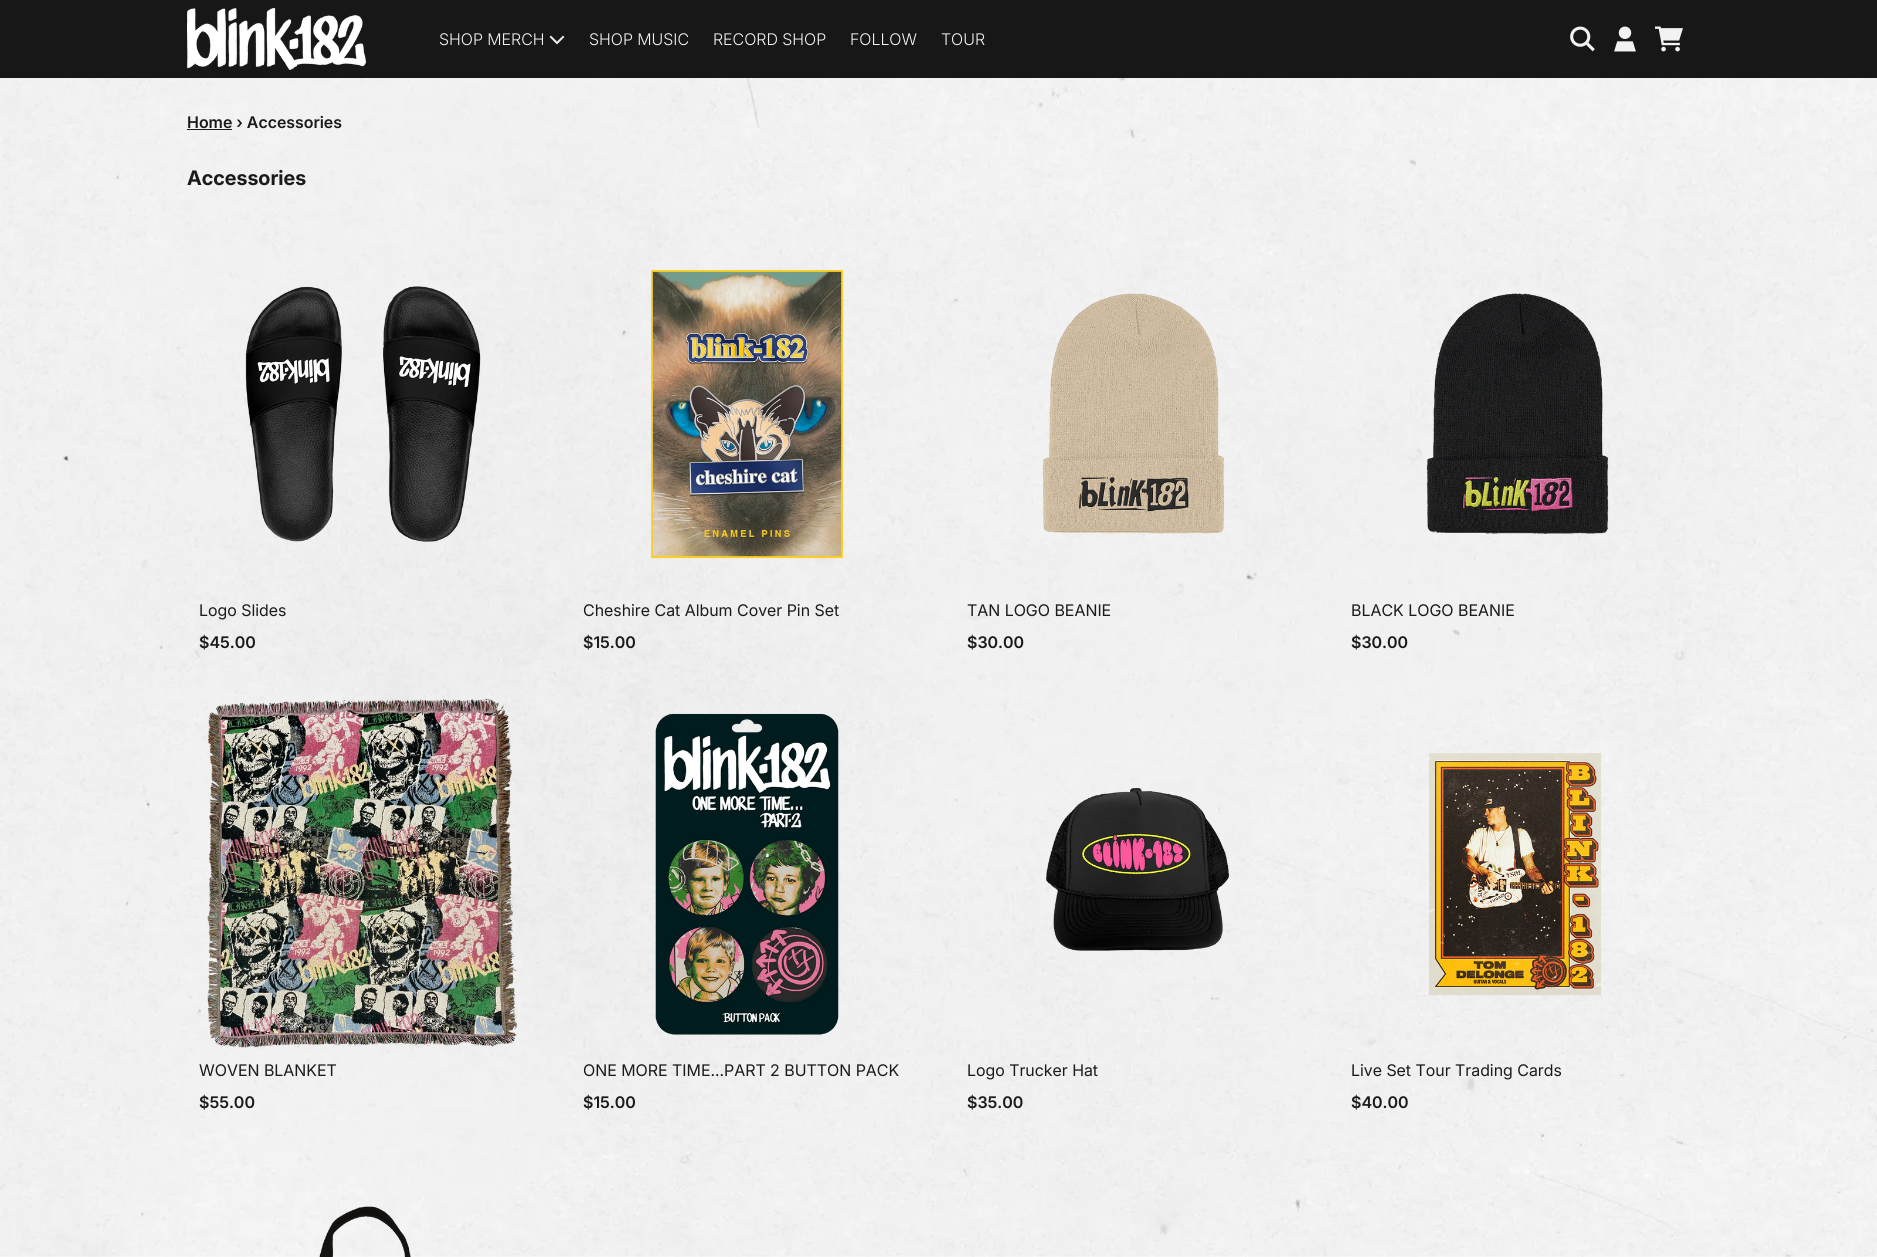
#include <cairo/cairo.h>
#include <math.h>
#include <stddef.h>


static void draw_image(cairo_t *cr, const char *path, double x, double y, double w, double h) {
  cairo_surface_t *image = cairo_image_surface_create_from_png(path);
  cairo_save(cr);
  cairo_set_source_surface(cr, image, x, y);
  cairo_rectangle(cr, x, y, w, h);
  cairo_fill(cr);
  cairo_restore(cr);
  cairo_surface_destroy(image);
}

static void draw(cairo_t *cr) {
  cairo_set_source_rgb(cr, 1, 1, 1);
  cairo_paint(cr);
  cairo_set_source_rgb(cr, 23 / 255.0, 23 / 255.0, 23 / 255.0);
  cairo_rectangle(cr, 0, 0, 1877, 78);
  cairo_fill(cr);
  draw_image(cr, "images/1.png", 187, 8, 179, 62);
  draw_image(cr, "images/2.png", 549, 35, 16, 10);
  draw_image(cr, "images/3.png", 1570, 26, 25, 26);
  draw_image(cr, "images/4.png", 1614, 26, 22, 26);
  draw_image(cr, "images/5.png", 1655, 26, 28, 26);
  draw_image(cr, "images/6.png", 0, 78, 1877, 1179);
  cairo_set_source_rgb(cr, 27 / 255.0, 27 / 255.0, 29 / 255.0);
  cairo_rectangle(cr, 187, 129, 45, 1);
  cairo_fill(cr);
  draw_image(cr, "images/7.png", 245, 286, 236, 256);
  draw_image(cr, "images/8.png", 651, 269, 193, 290);
  draw_image(cr, "images/9.png", 1042, 293, 183, 241);
  draw_image(cr, "images/10.png", 1426, 293, 183, 241);
  draw_image(cr, "images/11.png", 207, 698, 311, 352);
  draw_image(cr, "images/12.png", 655, 713, 184, 322);
  draw_image(cr, "images/13.png", 1046, 788, 184, 163);
  draw_image(cr, "images/14.png", 1429, 753, 173, 243);
  draw_image(cr, "images/15.png", 319, 1206, 92, 51);
  cairo_select_font_face(cr, "Inter Light", CAIRO_FONT_SLANT_NORMAL, CAIRO_FONT_WEIGHT_NORMAL);
  cairo_set_font_size(cr, 16);
  cairo_set_source_rgb(cr, 242 / 255.0, 242 / 255.0, 242 / 255.0);
  cairo_move_to(cr, 439, 45);
  cairo_show_text(cr, "SHOP MERCH");
  cairo_move_to(cr, 589, 45);
  cairo_show_text(cr, "SHOP MUSIC");
  cairo_move_to(cr, 713, 45);
  cairo_show_text(cr, "RECORD SHOP");
  cairo_move_to(cr, 850, 45);
  cairo_show_text(cr, "FOLLOW");
  cairo_move_to(cr, 941, 45);
  cairo_show_text(cr, "TOUR");
  cairo_select_font_face(cr, "Inter SemiBold", CAIRO_FONT_SLANT_NORMAL, CAIRO_FONT_WEIGHT_NORMAL);
  cairo_set_source_rgb(cr, 27 / 255.0, 27 / 255.0, 29 / 255.0);
  cairo_move_to(cr, 187, 128);
  cairo_show_text(cr, "Home › Accessories");
  cairo_select_font_face(cr, "Inter", CAIRO_FONT_SLANT_NORMAL, CAIRO_FONT_WEIGHT_BOLD);
  cairo_set_font_size(cr, 20);
  cairo_move_to(cr, 187, 185);
  cairo_show_text(cr, "Accessories");
  cairo_select_font_face(cr, "Inter", CAIRO_FONT_SLANT_NORMAL, CAIRO_FONT_WEIGHT_NORMAL);
  cairo_set_font_size(cr, 16);
  cairo_move_to(cr, 199, 616);
  cairo_show_text(cr, "Logo Slides");
  cairo_select_font_face(cr, "Inter SemiBold", CAIRO_FONT_SLANT_NORMAL, CAIRO_FONT_WEIGHT_NORMAL);
  cairo_move_to(cr, 199, 648);
  cairo_show_text(cr, "$45.00");
  cairo_select_font_face(cr, "Inter", CAIRO_FONT_SLANT_NORMAL, CAIRO_FONT_WEIGHT_NORMAL);
  cairo_move_to(cr, 583, 616);
  cairo_show_text(cr, "Cheshire Cat Album Cover Pin Set");
  cairo_select_font_face(cr, "Inter SemiBold", CAIRO_FONT_SLANT_NORMAL, CAIRO_FONT_WEIGHT_NORMAL);
  cairo_move_to(cr, 583, 648);
  cairo_show_text(cr, "$15.00");
  cairo_select_font_face(cr, "Inter", CAIRO_FONT_SLANT_NORMAL, CAIRO_FONT_WEIGHT_NORMAL);
  cairo_move_to(cr, 967, 616);
  cairo_show_text(cr, "TAN LOGO BEANIE");
  cairo_select_font_face(cr, "Inter SemiBold", CAIRO_FONT_SLANT_NORMAL, CAIRO_FONT_WEIGHT_NORMAL);
  cairo_move_to(cr, 967, 648);
  cairo_show_text(cr, "$30.00");
  cairo_select_font_face(cr, "Inter", CAIRO_FONT_SLANT_NORMAL, CAIRO_FONT_WEIGHT_NORMAL);
  cairo_move_to(cr, 1351, 616);
  cairo_show_text(cr, "BLACK LOGO BEANIE");
  cairo_select_font_face(cr, "Inter SemiBold", CAIRO_FONT_SLANT_NORMAL, CAIRO_FONT_WEIGHT_NORMAL);
  cairo_move_to(cr, 1351, 648);
  cairo_show_text(cr, "$30.00");
  cairo_select_font_face(cr, "Inter", CAIRO_FONT_SLANT_NORMAL, CAIRO_FONT_WEIGHT_NORMAL);
  cairo_move_to(cr, 199, 1076);
  cairo_show_text(cr, "WOVEN BLANKET");
  cairo_select_font_face(cr, "Inter SemiBold", CAIRO_FONT_SLANT_NORMAL, CAIRO_FONT_WEIGHT_NORMAL);
  cairo_move_to(cr, 199, 1108);
  cairo_show_text(cr, "$55.00");
  cairo_select_font_face(cr, "Inter", CAIRO_FONT_SLANT_NORMAL, CAIRO_FONT_WEIGHT_NORMAL);
  cairo_move_to(cr, 583, 1076);
  cairo_show_text(cr, "ONE MORE TIME...PART 2 BUTTON PACK");
  cairo_select_font_face(cr, "Inter SemiBold", CAIRO_FONT_SLANT_NORMAL, CAIRO_FONT_WEIGHT_NORMAL);
  cairo_move_to(cr, 583, 1108);
  cairo_show_text(cr, "$15.00");
  cairo_select_font_face(cr, "Inter", CAIRO_FONT_SLANT_NORMAL, CAIRO_FONT_WEIGHT_NORMAL);
  cairo_move_to(cr, 967, 1076);
  cairo_show_text(cr, "Logo Trucker Hat");
  cairo_select_font_face(cr, "Inter SemiBold", CAIRO_FONT_SLANT_NORMAL, CAIRO_FONT_WEIGHT_NORMAL);
  cairo_move_to(cr, 967, 1108);
  cairo_show_text(cr, "$35.00");
  cairo_select_font_face(cr, "Inter", CAIRO_FONT_SLANT_NORMAL, CAIRO_FONT_WEIGHT_NORMAL);
  cairo_move_to(cr, 1351, 1076);
  cairo_show_text(cr, "Live Set Tour Trading Cards");
  cairo_select_font_face(cr, "Inter SemiBold", CAIRO_FONT_SLANT_NORMAL, CAIRO_FONT_WEIGHT_NORMAL);
  cairo_move_to(cr, 1351, 1108);
  cairo_show_text(cr, "$40.00");
}

int main(void) {
  cairo_surface_t *surface = cairo_image_surface_create(CAIRO_FORMAT_RGB24, 1877, 1257);
  cairo_t *cr = cairo_create(surface);
  cairo_font_options_t *options = cairo_font_options_create();
  cairo_font_options_set_hint_metrics(options, CAIRO_HINT_METRICS_OFF);
  cairo_font_options_set_hint_style(options, CAIRO_HINT_STYLE_NONE);
  cairo_set_font_options(cr, options);
  cairo_set_miter_limit(cr, 4);
  draw(cr);
  cairo_surface_write_to_png(surface, "out.png");
  cairo_font_options_destroy(options);
  cairo_destroy(cr);
  cairo_surface_destroy(surface);
  return 0;
}
